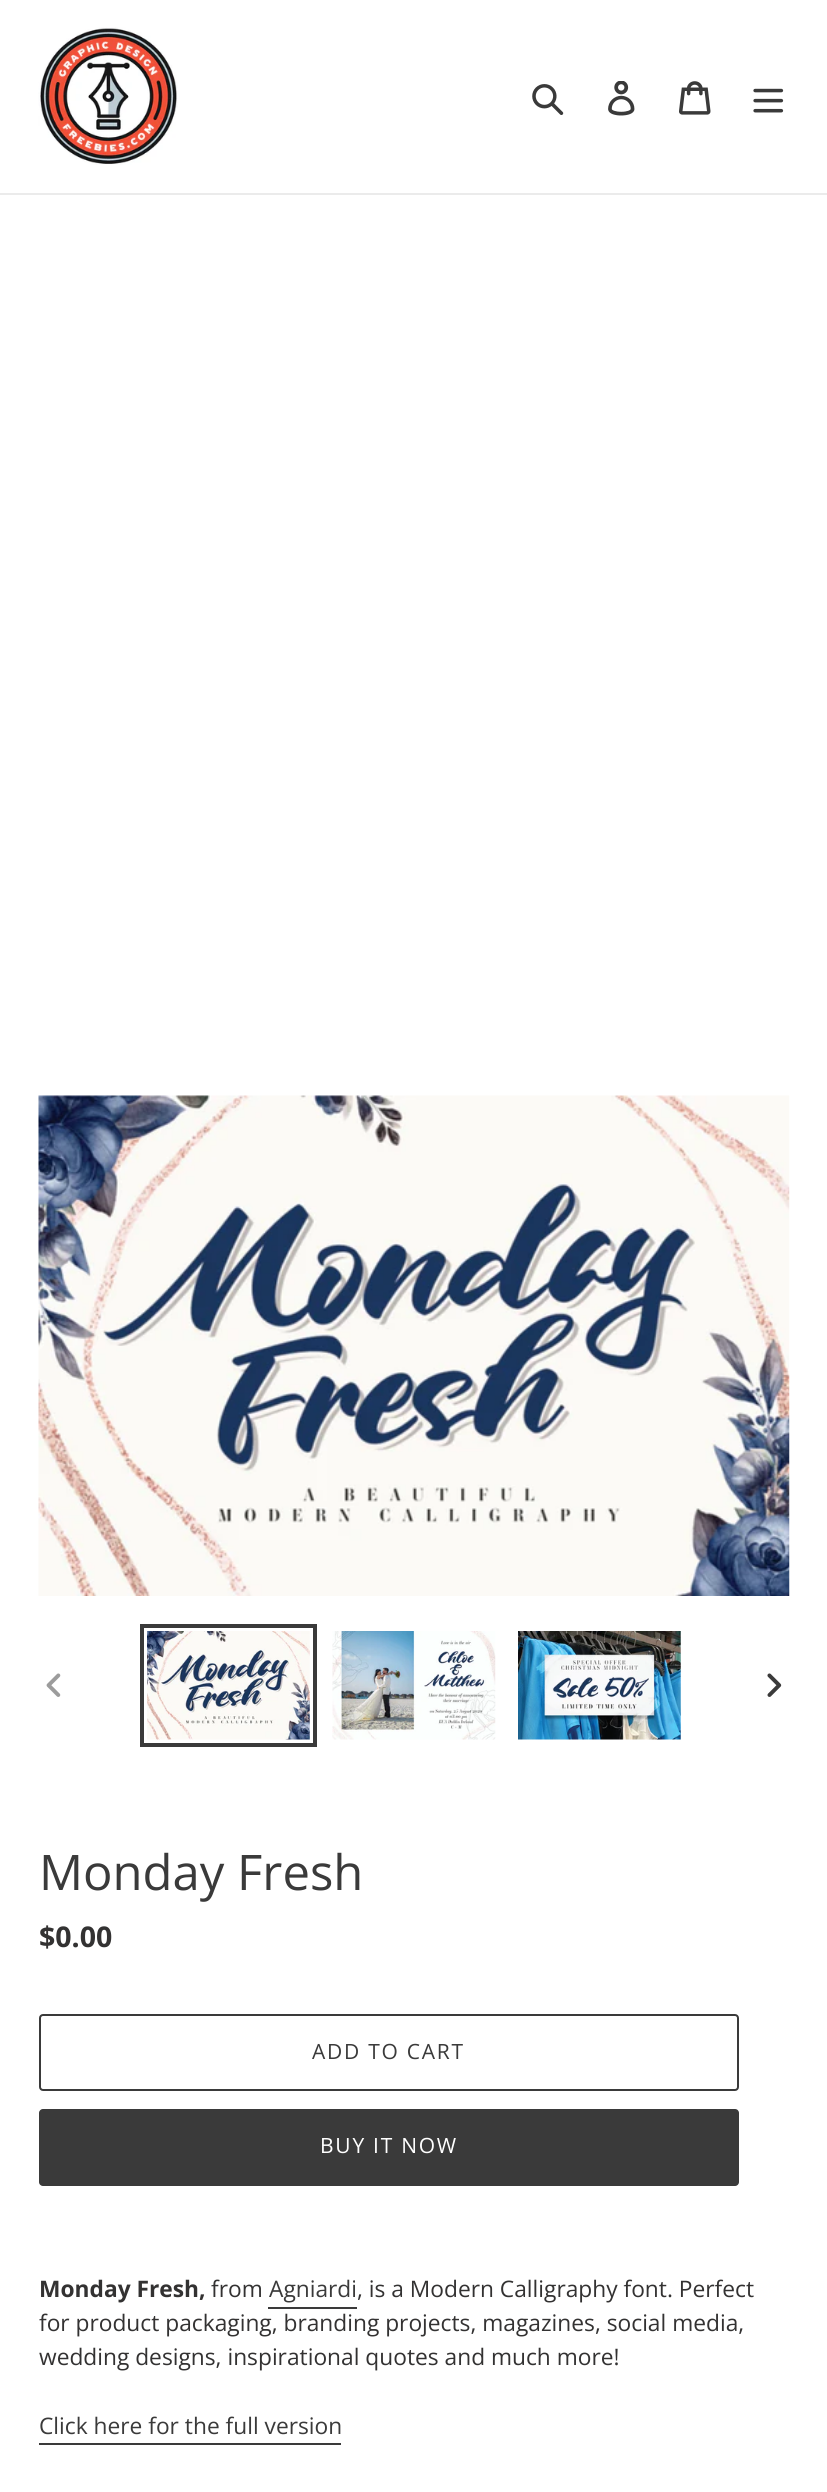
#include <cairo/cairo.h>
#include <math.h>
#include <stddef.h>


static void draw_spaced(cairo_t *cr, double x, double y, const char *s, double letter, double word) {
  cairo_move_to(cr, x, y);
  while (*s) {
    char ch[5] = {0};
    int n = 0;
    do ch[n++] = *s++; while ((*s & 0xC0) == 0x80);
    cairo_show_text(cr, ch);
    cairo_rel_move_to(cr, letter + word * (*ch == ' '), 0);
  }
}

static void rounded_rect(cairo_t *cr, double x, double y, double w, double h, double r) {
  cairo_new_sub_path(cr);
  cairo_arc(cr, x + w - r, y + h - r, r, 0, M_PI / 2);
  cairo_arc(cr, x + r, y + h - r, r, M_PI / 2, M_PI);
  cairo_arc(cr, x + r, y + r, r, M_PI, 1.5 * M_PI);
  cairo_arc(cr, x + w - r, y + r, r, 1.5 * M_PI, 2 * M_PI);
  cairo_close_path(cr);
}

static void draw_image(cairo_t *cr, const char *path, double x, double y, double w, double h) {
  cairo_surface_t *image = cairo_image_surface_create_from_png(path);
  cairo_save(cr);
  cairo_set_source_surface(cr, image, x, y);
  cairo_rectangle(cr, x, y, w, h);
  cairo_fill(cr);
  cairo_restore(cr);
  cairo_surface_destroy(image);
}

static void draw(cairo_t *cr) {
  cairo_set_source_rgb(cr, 1, 1, 1);
  cairo_paint(cr);
  cairo_set_source_rgb(cr, 235 / 255.0, 235 / 255.0, 235 / 255.0);
  cairo_rectangle(cr, 0, 193, 827, 2);
  cairo_fill(cr);
  draw_image(cr, "images/1.png", 38, 27, 140, 138);
  draw_image(cr, "images/2.png", 532, 84, 32, 31);
  draw_image(cr, "images/3.png", 608, 81, 27, 35);
  draw_image(cr, "images/4.png", 679, 81, 32, 34);
  draw_image(cr, "images/5.png", 753, 88, 31, 25);
  draw_image(cr, "images/6.png", 38, 1095, 752, 501);
  draw_image(cr, "images/7.png", 46, 1673, 15, 24);
  cairo_rectangle(cr, 142, 1626, 173, 119);
  cairo_set_source_rgb(cr, 58 / 255.0, 58 / 255.0, 58 / 255.0);
  cairo_set_line_width(cr, 4);
  cairo_stroke(cr);
  draw_image(cr, "images/8.png", 147, 1631, 163, 109);
  draw_image(cr, "images/9.png", 332, 1631, 164, 109);
  draw_image(cr, "images/10.png", 518, 1631, 163, 109);
  draw_image(cr, "images/11.png", 767, 1673, 15, 24);
  rounded_rect(cr, 40, 2015, 698, 75, 3);
  cairo_set_line_width(cr, 2);
  cairo_stroke(cr);
  rounded_rect(cr, 39, 2109, 700, 77, 4);
  cairo_fill(cr);
  cairo_rectangle(cr, 268, 2307, 89, 2);
  cairo_fill(cr);
  cairo_rectangle(cr, 39, 2443, 302, 2);
  cairo_fill(cr);
  cairo_select_font_face(cr, "Open Sans", CAIRO_FONT_SLANT_NORMAL, CAIRO_FONT_WEIGHT_NORMAL);
  cairo_set_font_size(cr, 49);
  cairo_move_to(cr, 39, 1890);
  cairo_show_text(cr, "Monday Fresh");
  cairo_select_font_face(cr, "Open Sans", CAIRO_FONT_SLANT_NORMAL, CAIRO_FONT_WEIGHT_BOLD);
  cairo_set_font_size(cr, 28.5);
  cairo_set_source_rgb(cr, 51 / 255.0, 50 / 255.0, 50 / 255.0);
  cairo_move_to(cr, 39, 1947);
  cairo_show_text(cr, "$0.00");
  cairo_select_font_face(cr, "Open Sans", CAIRO_FONT_SLANT_NORMAL, CAIRO_FONT_WEIGHT_NORMAL);
  cairo_set_font_size(cr, 21);
  cairo_set_source_rgb(cr, 58 / 255.0, 58 / 255.0, 58 / 255.0);
  draw_spaced(cr, 312, 2059, "ADD TO CART", 1.75, 0);
  cairo_set_source_rgb(cr, 1, 1, 1);
  draw_spaced(cr, 320, 2153, "BUY IT NOW", 1.75, 0);
  cairo_select_font_face(cr, "Open Sans", CAIRO_FONT_SLANT_NORMAL, CAIRO_FONT_WEIGHT_BOLD);
  cairo_set_font_size(cr, 22.75);
  cairo_set_source_rgb(cr, 51 / 255.0, 50 / 255.0, 50 / 255.0);
  cairo_move_to(cr, 39, 2297);
  cairo_show_text(cr, "Monday Fresh,");
  cairo_select_font_face(cr, "Open Sans", CAIRO_FONT_SLANT_NORMAL, CAIRO_FONT_WEIGHT_NORMAL);
  cairo_move_to(cr, 211, 2297);
  cairo_show_text(cr, "from");
  cairo_set_source_rgb(cr, 58 / 255.0, 58 / 255.0, 58 / 255.0);
  cairo_move_to(cr, 269, 2297);
  cairo_show_text(cr, "Agniardi");
  cairo_set_source_rgb(cr, 51 / 255.0, 50 / 255.0, 50 / 255.0);
  cairo_move_to(cr, 357, 2297);
  cairo_show_text(cr, ", is a Modern Calligraphy font. Perfect");
  cairo_move_to(cr, 39, 2331);
  cairo_show_text(cr, "for product packaging, branding projects, magazines, social media,");
  cairo_move_to(cr, 39, 2365);
  cairo_show_text(cr, "wedding designs, inspirational quotes and much more!");
  cairo_set_source_rgb(cr, 58 / 255.0, 58 / 255.0, 58 / 255.0);
  cairo_move_to(cr, 39, 2434);
  cairo_show_text(cr, "Click here for the full version");
}

int main(void) {
  cairo_surface_t *surface = cairo_image_surface_create(CAIRO_FORMAT_RGB24, 827, 2492);
  cairo_t *cr = cairo_create(surface);
  cairo_font_options_t *options = cairo_font_options_create();
  cairo_font_options_set_hint_metrics(options, CAIRO_HINT_METRICS_OFF);
  cairo_font_options_set_hint_style(options, CAIRO_HINT_STYLE_NONE);
  cairo_set_font_options(cr, options);
  cairo_set_miter_limit(cr, 4);
  draw(cr);
  cairo_surface_write_to_png(surface, "out.png");
  cairo_font_options_destroy(options);
  cairo_destroy(cr);
  cairo_surface_destroy(surface);
  return 0;
}
